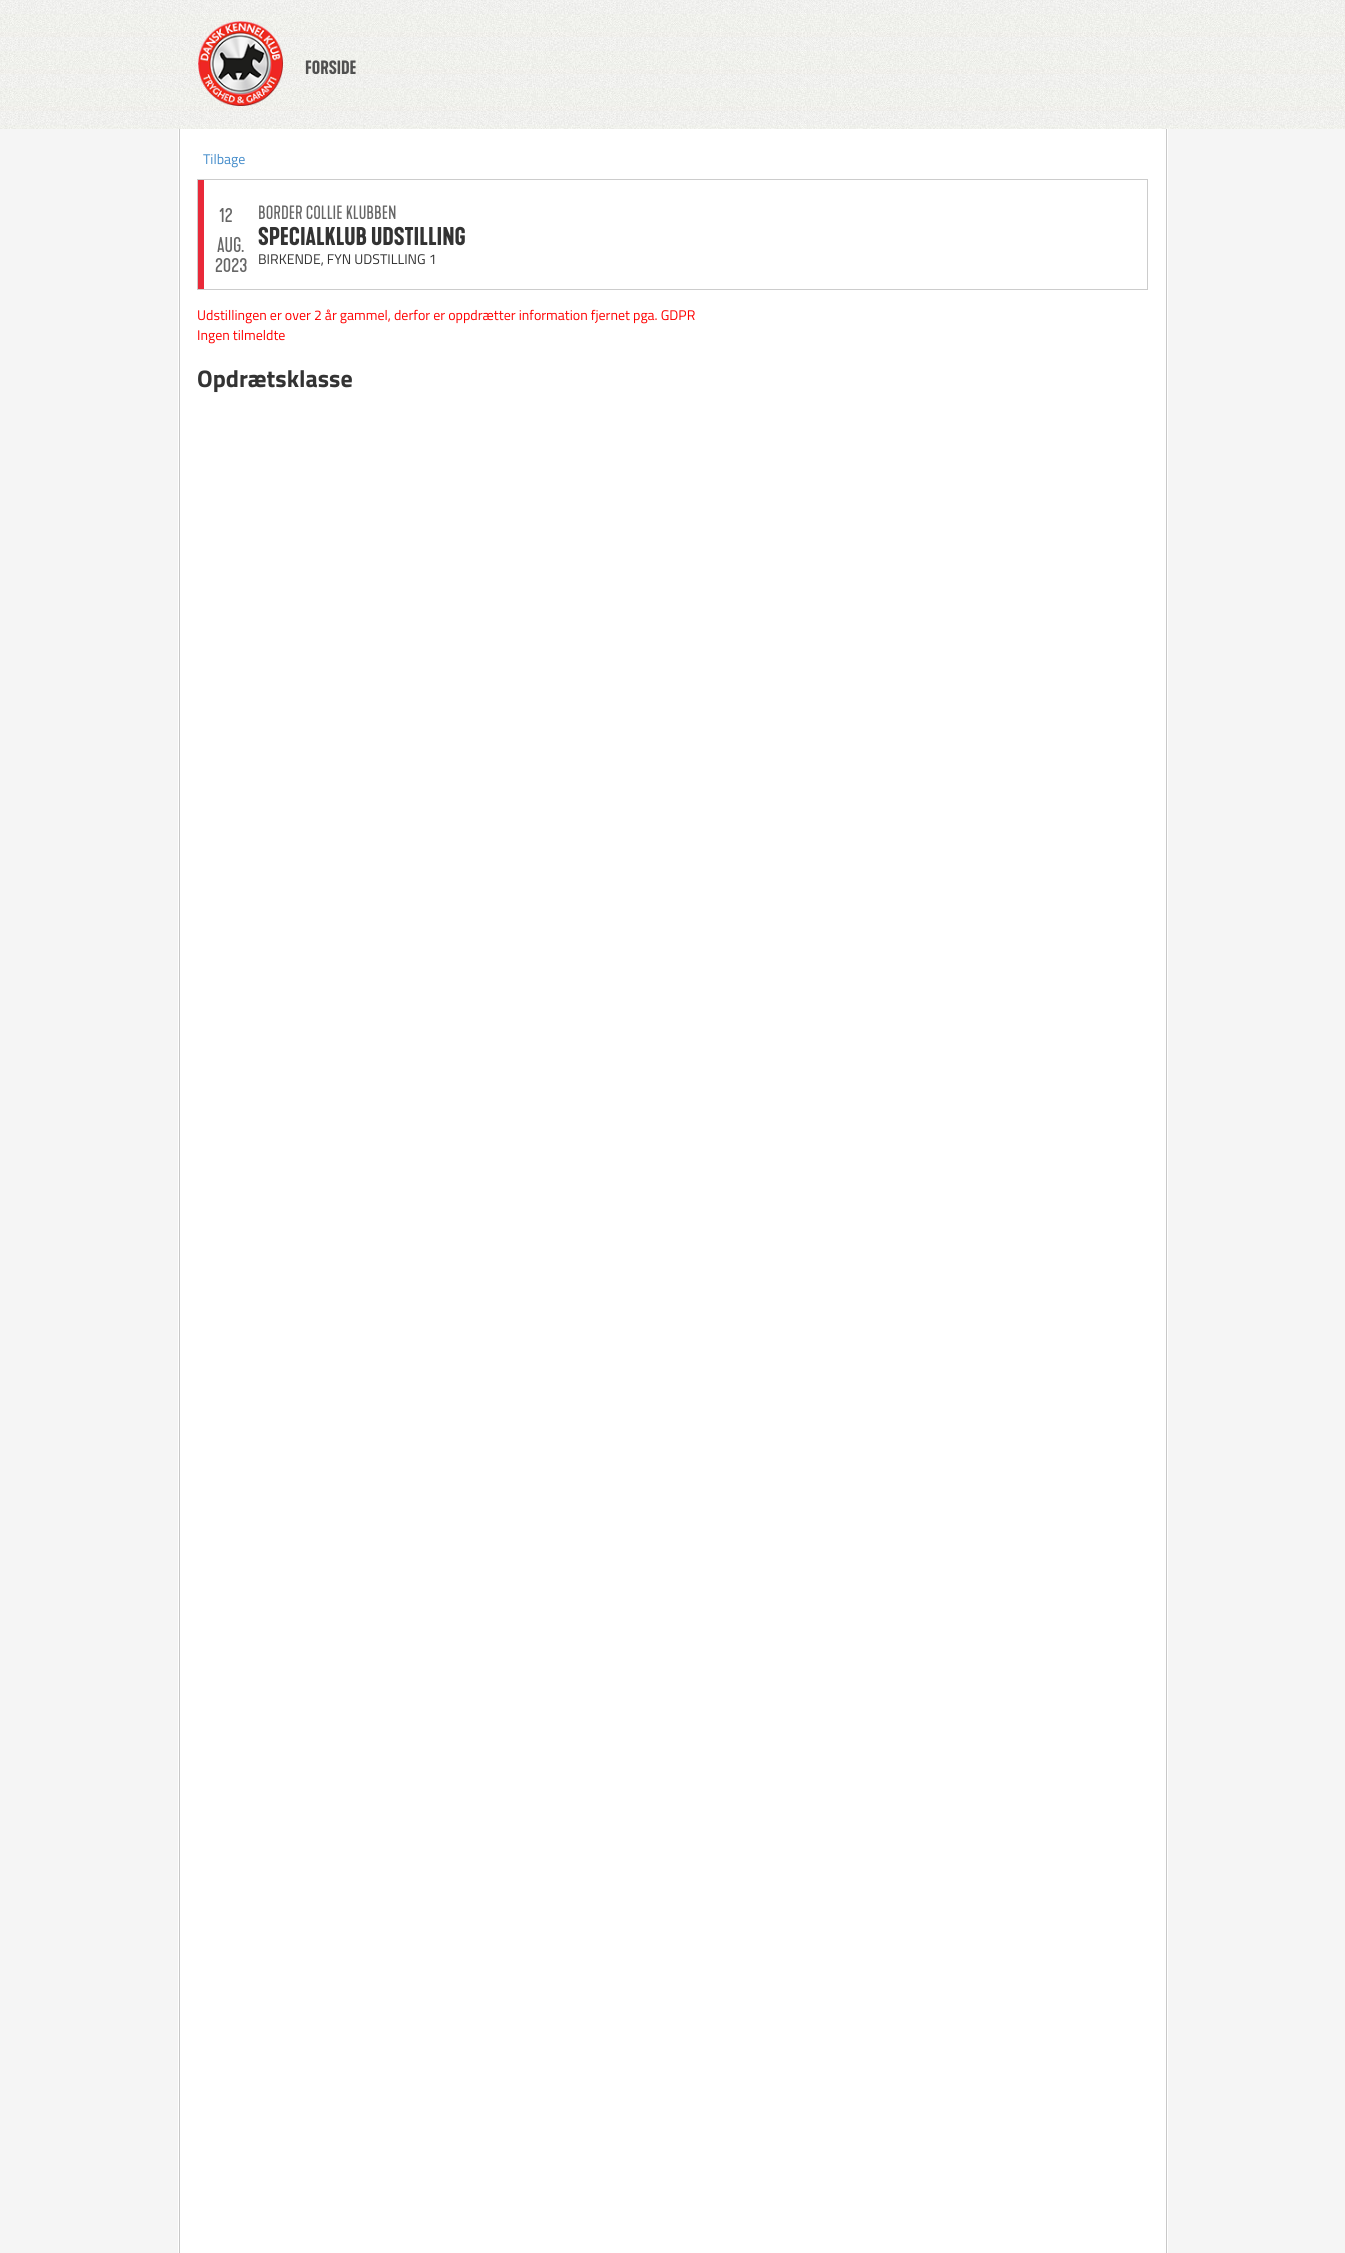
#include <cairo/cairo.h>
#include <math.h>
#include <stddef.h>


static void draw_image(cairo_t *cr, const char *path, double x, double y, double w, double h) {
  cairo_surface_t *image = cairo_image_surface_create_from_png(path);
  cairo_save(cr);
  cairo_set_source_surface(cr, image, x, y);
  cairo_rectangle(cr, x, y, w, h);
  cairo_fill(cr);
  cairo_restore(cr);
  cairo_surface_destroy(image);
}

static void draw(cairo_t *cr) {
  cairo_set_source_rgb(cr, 245 / 255.0, 245 / 255.0, 245 / 255.0);
  cairo_paint(cr);
  draw_image(cr, "images/1.png", 178, 129, 990, 2124);
  draw_image(cr, "images/2.png", 0, 0, 1345, 129);
  draw_image(cr, "images/3.png", 198, 21, 85, 85);
  cairo_rectangle(cr, 197.5, 179.5, 950, 110);
  cairo_set_source_rgb(cr, 204 / 255.0, 204 / 255.0, 204 / 255.0);
  cairo_set_line_width(cr, 1);
  cairo_stroke(cr);
  cairo_set_source_rgb(cr, 233 / 255.0, 41 / 255.0, 57 / 255.0);
  cairo_rectangle(cr, 198, 180, 6, 109);
  cairo_fill(cr);
  cairo_select_font_face(cr, "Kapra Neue", CAIRO_FONT_SLANT_NORMAL, CAIRO_FONT_WEIGHT_BOLD);
  cairo_set_font_size(cr, 18);
  cairo_set_source_rgb(cr, 80 / 255.0, 80 / 255.0, 80 / 255.0);
  cairo_move_to(cr, 305, 74);
  cairo_show_text(cr, "FORSIDE");
  cairo_select_font_face(cr, "Titillium Web", CAIRO_FONT_SLANT_NORMAL, CAIRO_FONT_WEIGHT_NORMAL);
  cairo_set_font_size(cr, 14);
  cairo_set_source_rgb(cr, 66 / 255.0, 139 / 255.0, 202 / 255.0);
  cairo_move_to(cr, 203, 164);
  cairo_show_text(cr, "Tilbage");
  cairo_select_font_face(cr, "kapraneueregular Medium", CAIRO_FONT_SLANT_NORMAL, CAIRO_FONT_WEIGHT_NORMAL);
  cairo_set_font_size(cr, 20);
  cairo_set_source_rgb(cr, 102 / 255.0, 102 / 255.0, 102 / 255.0);
  cairo_move_to(cr, 219, 222);
  cairo_show_text(cr, "12");
  cairo_move_to(cr, 217, 252);
  cairo_show_text(cr, "AUG.");
  cairo_move_to(cr, 215, 272);
  cairo_show_text(cr, "2023");
  cairo_set_font_size(cr, 18);
  cairo_move_to(cr, 258, 219);
  cairo_show_text(cr, "BORDER COLLIE KLUBBEN");
  cairo_select_font_face(cr, "Kapra Neue", CAIRO_FONT_SLANT_NORMAL, CAIRO_FONT_WEIGHT_BOLD);
  cairo_set_font_size(cr, 24);
  cairo_set_source_rgb(cr, 51 / 255.0, 51 / 255.0, 51 / 255.0);
  cairo_move_to(cr, 258, 245);
  cairo_show_text(cr, "SPECIALKLUB UDSTILLING");
  cairo_select_font_face(cr, "Titillium Web", CAIRO_FONT_SLANT_NORMAL, CAIRO_FONT_WEIGHT_NORMAL);
  cairo_set_font_size(cr, 14);
  cairo_move_to(cr, 258, 264);
  cairo_show_text(cr, "BIRKENDE, FYN UDSTILLING 1");
  cairo_set_source_rgb(cr, 1, 0, 0);
  cairo_move_to(cr, 197, 320);
  cairo_show_text(cr, "Udstillingen er over 2 år gammel, derfor er oppdrætter information fjernet pga. GDPR");
  cairo_move_to(cr, 197, 340);
  cairo_show_text(cr, "Ingen tilmeldte");
  cairo_select_font_face(cr, "Titillium Web", CAIRO_FONT_SLANT_NORMAL, CAIRO_FONT_WEIGHT_BOLD);
  cairo_set_font_size(cr, 24);
  cairo_set_source_rgb(cr, 51 / 255.0, 51 / 255.0, 51 / 255.0);
  cairo_move_to(cr, 197, 387);
  cairo_show_text(cr, "Opdrætsklasse");
}

int main(void) {
  cairo_surface_t *surface = cairo_image_surface_create(CAIRO_FORMAT_RGB24, 1345, 2253);
  cairo_t *cr = cairo_create(surface);
  cairo_font_options_t *options = cairo_font_options_create();
  cairo_font_options_set_hint_metrics(options, CAIRO_HINT_METRICS_OFF);
  cairo_font_options_set_hint_style(options, CAIRO_HINT_STYLE_NONE);
  cairo_set_font_options(cr, options);
  cairo_set_miter_limit(cr, 4);
  draw(cr);
  cairo_surface_write_to_png(surface, "out.png");
  cairo_font_options_destroy(options);
  cairo_destroy(cr);
  cairo_surface_destroy(surface);
  return 0;
}
